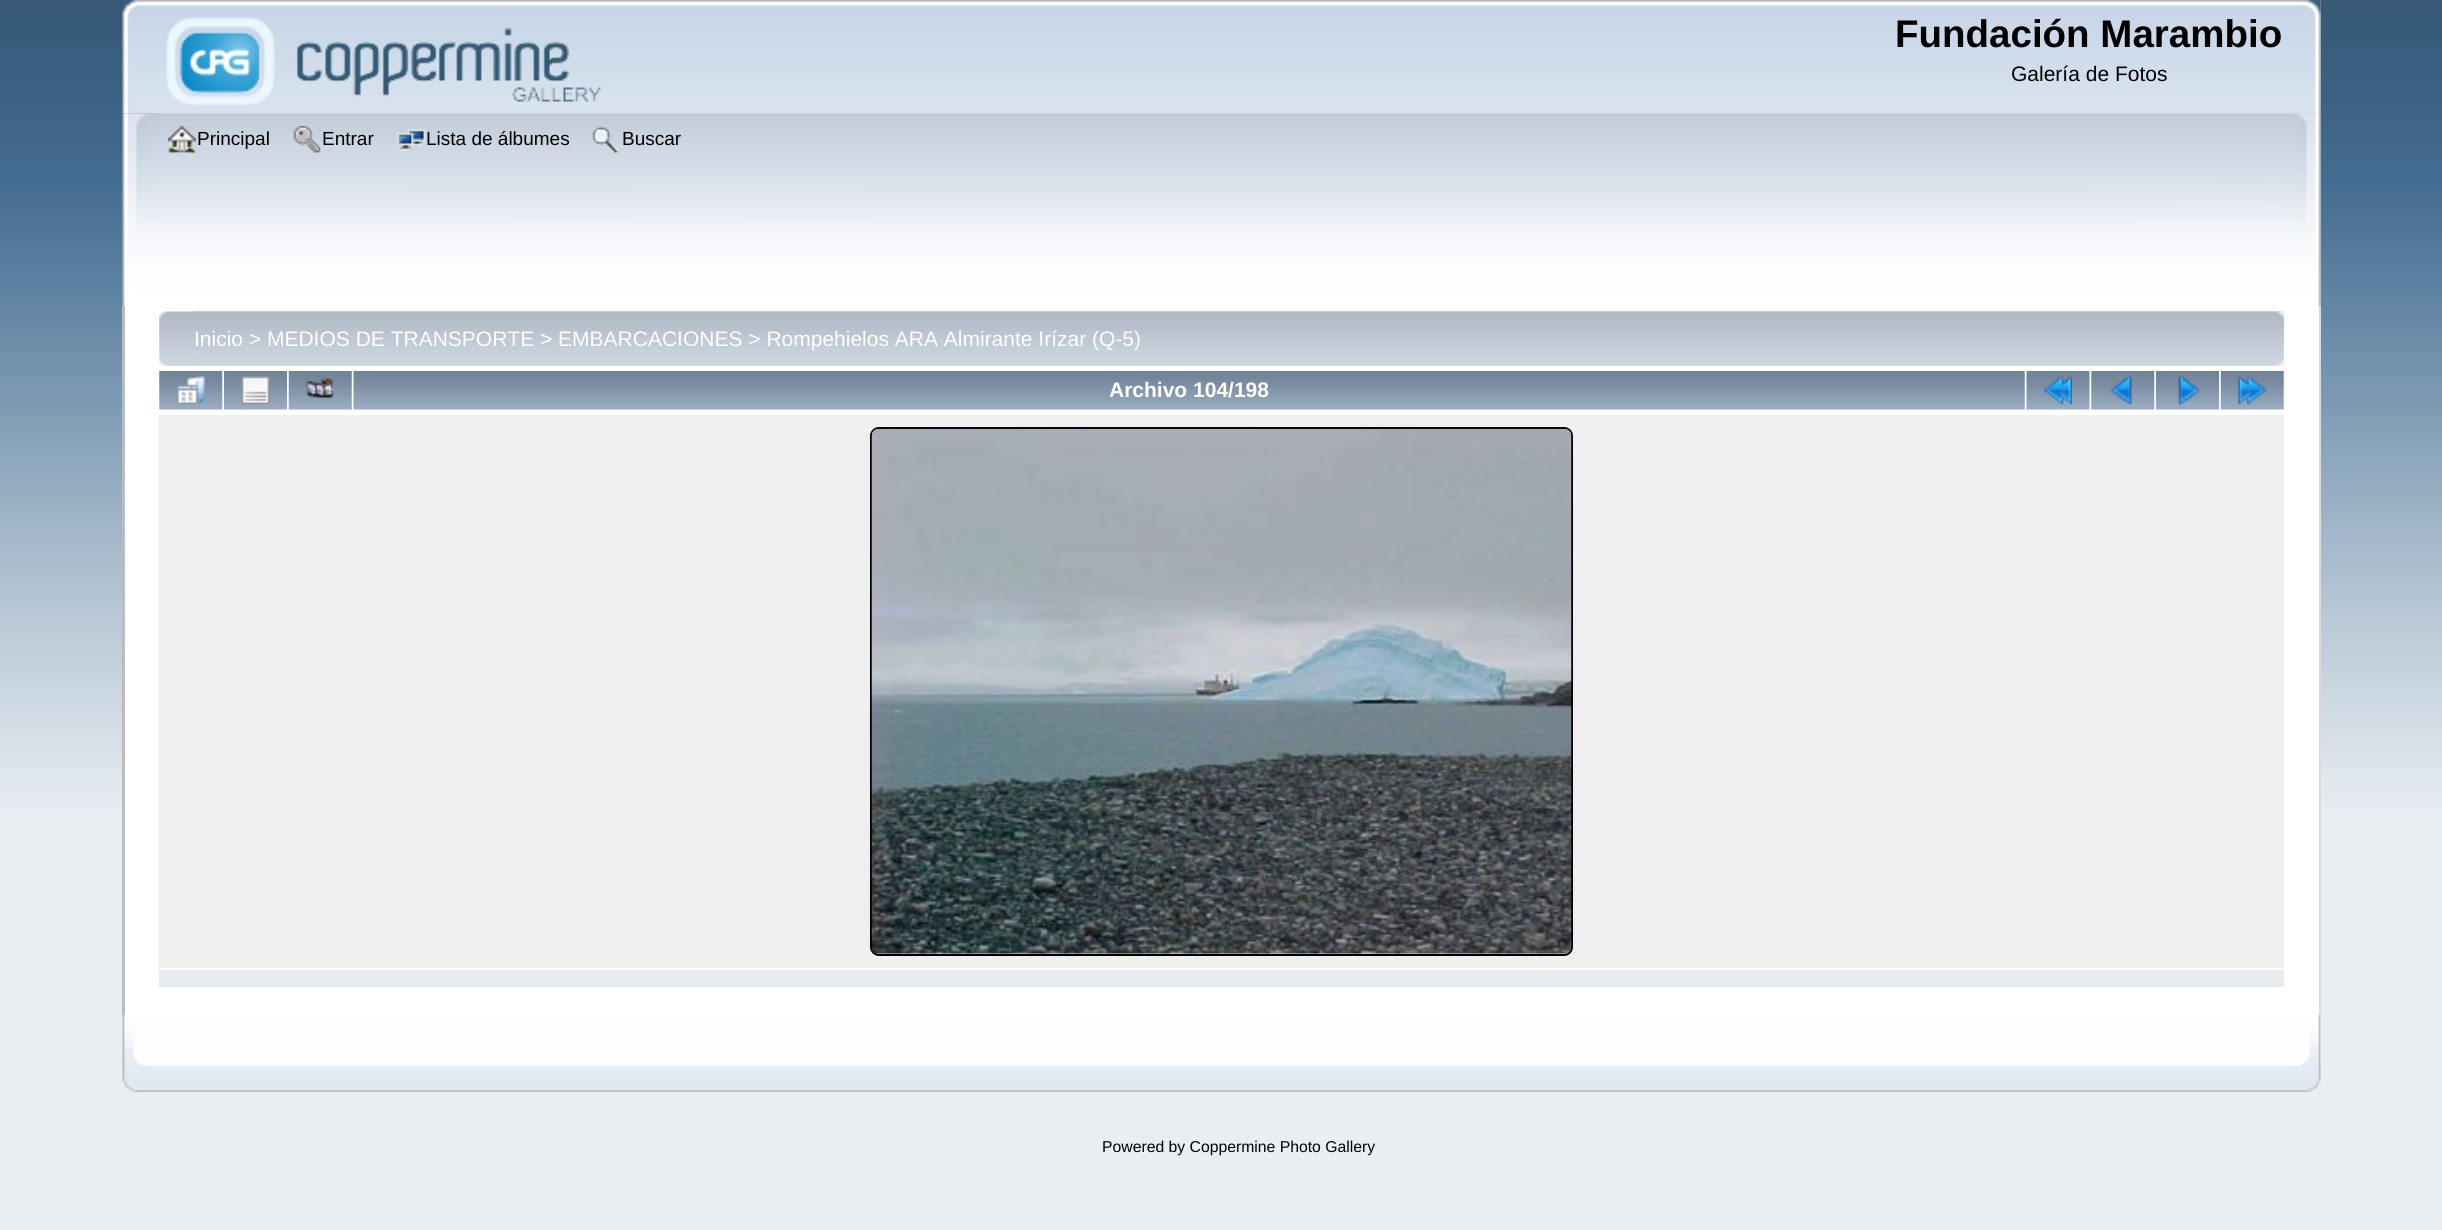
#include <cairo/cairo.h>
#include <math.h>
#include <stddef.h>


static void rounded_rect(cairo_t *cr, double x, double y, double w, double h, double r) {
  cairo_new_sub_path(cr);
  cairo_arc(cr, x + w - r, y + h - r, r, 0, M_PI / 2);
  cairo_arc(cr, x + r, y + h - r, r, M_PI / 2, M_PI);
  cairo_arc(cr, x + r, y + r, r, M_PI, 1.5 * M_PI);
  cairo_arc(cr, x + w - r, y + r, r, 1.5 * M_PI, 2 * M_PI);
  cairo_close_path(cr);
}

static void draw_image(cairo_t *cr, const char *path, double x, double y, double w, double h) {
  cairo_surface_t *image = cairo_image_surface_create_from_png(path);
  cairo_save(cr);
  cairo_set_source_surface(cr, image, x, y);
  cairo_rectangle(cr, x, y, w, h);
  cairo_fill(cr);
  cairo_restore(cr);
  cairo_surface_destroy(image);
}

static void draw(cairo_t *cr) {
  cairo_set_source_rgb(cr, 233 / 255.0, 238 / 255.0, 242 / 255.0);
  cairo_paint(cr);
  draw_image(cr, "images/1.png", 0, 0, 2442, 808);
  draw_image(cr, "images/2.png", 122, 0, 2199, 114);
  draw_image(cr, "images/3.png", 158, 0, 2163, 114);
  draw_image(cr, "images/4.png", 166, 17, 435, 88);
  draw_image(cr, "images/5.png", 122, 113, 2199, 193);
  draw_image(cr, "images/6.png", 157, 113, 2164, 193);
  draw_image(cr, "images/7.png", 168, 126, 28, 28);
  draw_image(cr, "images/8.png", 293, 126, 28, 27);
  draw_image(cr, "images/9.png", 397, 129, 29, 22);
  draw_image(cr, "images/10.png", 591, 126, 28, 27);
  cairo_set_source_rgb(cr, 1, 1, 1);
  cairo_rectangle(cr, 125, 306, 2196, 709);
  cairo_fill(cr);
  cairo_set_source_rgb(cr, 188 / 255.0, 188 / 255.0, 188 / 255.0);
  cairo_rectangle(cr, 122, 306, 3, 709);
  cairo_fill(cr);
  draw_image(cr, "images/11.png", 2319, 306, 2, 709);
  draw_image(cr, "images/12.png", 159, 311, 2125, 55);
  draw_image(cr, "images/13.png", 194, 311, 2090, 55);
  draw_image(cr, "images/14.png", 159, 371, 64, 39);
  draw_image(cr, "images/15.png", 177, 376, 28, 29);
  draw_image(cr, "images/16.png", 224, 371, 63, 39);
  draw_image(cr, "images/17.png", 241, 376, 29, 29);
  draw_image(cr, "images/18.png", 288, 371, 64, 39);
  draw_image(cr, "images/19.png", 306, 377, 29, 22);
  draw_image(cr, "images/20.png", 353, 371, 1672, 39);
  draw_image(cr, "images/21.png", 2026, 371, 64, 39);
  draw_image(cr, "images/22.png", 2044, 376, 28, 29);
  draw_image(cr, "images/14.png", 2091, 371, 64, 39);
  draw_image(cr, "images/23.png", 2110, 376, 22, 29);
  draw_image(cr, "images/16.png", 2156, 371, 63, 39);
  draw_image(cr, "images/24.png", 2178, 376, 23, 29);
  draw_image(cr, "images/18.png", 2220, 371, 64, 39);
  draw_image(cr, "images/25.png", 2238, 376, 29, 29);
  cairo_set_source_rgb(cr, 239 / 255.0, 239 / 255.0, 239 / 255.0);
  cairo_rectangle(cr, 159, 415, 2125, 553);
  cairo_fill(cr);
  rounded_rect(cr, 871, 428, 701, 527, 8);
  cairo_set_source_rgb(cr, 0, 0, 0);
  cairo_stroke(cr);
  draw_image(cr, "images/26.png", 871, 428, 701, 526);
  cairo_set_source_rgb(cr, 231 / 255.0, 234 / 255.0, 239 / 255.0);
  cairo_rectangle(cr, 159, 970, 2125, 17);
  cairo_fill(cr);
  draw_image(cr, "images/27.png", 122, 1015, 2199, 77);
  draw_image(cr, "images/28.png", 2299, 1015, 22, 77);
  cairo_select_font_face(cr, "Liberation Sans", CAIRO_FONT_SLANT_NORMAL, CAIRO_FONT_WEIGHT_BOLD);
  cairo_set_font_size(cr, 38.5);
  cairo_set_source_rgb(cr, 0, 0, 0);
  cairo_move_to(cr, 1895, 47);
  cairo_show_text(cr, "Fundación Marambio");
  cairo_select_font_face(cr, "Liberation Sans", CAIRO_FONT_SLANT_NORMAL, CAIRO_FONT_WEIGHT_NORMAL);
  cairo_set_font_size(cr, 21);
  cairo_move_to(cr, 2011, 81);
  cairo_show_text(cr, "Galería de Fotos");
  cairo_set_font_size(cr, 19);
  cairo_move_to(cr, 197, 145);
  cairo_show_text(cr, "Principal");
  cairo_move_to(cr, 322, 145);
  cairo_show_text(cr, "Entrar");
  cairo_move_to(cr, 426, 145);
  cairo_show_text(cr, "Lista de álbumes");
  cairo_move_to(cr, 622, 145);
  cairo_show_text(cr, "Buscar");
  cairo_set_font_size(cr, 21);
  cairo_set_source_rgb(cr, 1, 1, 1);
  cairo_move_to(cr, 194, 346);
  cairo_show_text(cr, "Inicio > MEDIOS DE TRANSPORTE > EMBARCACIONES > Rompehielos ARA Almirante Irízar (Q-5)");
  cairo_select_font_face(cr, "Liberation Sans", CAIRO_FONT_SLANT_NORMAL, CAIRO_FONT_WEIGHT_BOLD);
  cairo_move_to(cr, 1109, 397);
  cairo_show_text(cr, "Archivo 104/198");
  cairo_select_font_face(cr, "Liberation Sans", CAIRO_FONT_SLANT_NORMAL, CAIRO_FONT_WEIGHT_NORMAL);
  cairo_set_font_size(cr, 15.75);
  cairo_set_source_rgb(cr, 0, 0, 0);
  cairo_move_to(cr, 1102, 1152);
  cairo_show_text(cr, "Powered by Coppermine Photo Gallery");
}

int main(void) {
  cairo_surface_t *surface = cairo_image_surface_create(CAIRO_FORMAT_RGB24, 2442, 1230);
  cairo_t *cr = cairo_create(surface);
  cairo_font_options_t *options = cairo_font_options_create();
  cairo_font_options_set_hint_metrics(options, CAIRO_HINT_METRICS_OFF);
  cairo_font_options_set_hint_style(options, CAIRO_HINT_STYLE_NONE);
  cairo_set_font_options(cr, options);
  cairo_set_miter_limit(cr, 4);
  draw(cr);
  cairo_surface_write_to_png(surface, "out.png");
  cairo_font_options_destroy(options);
  cairo_destroy(cr);
  cairo_surface_destroy(surface);
  return 0;
}
